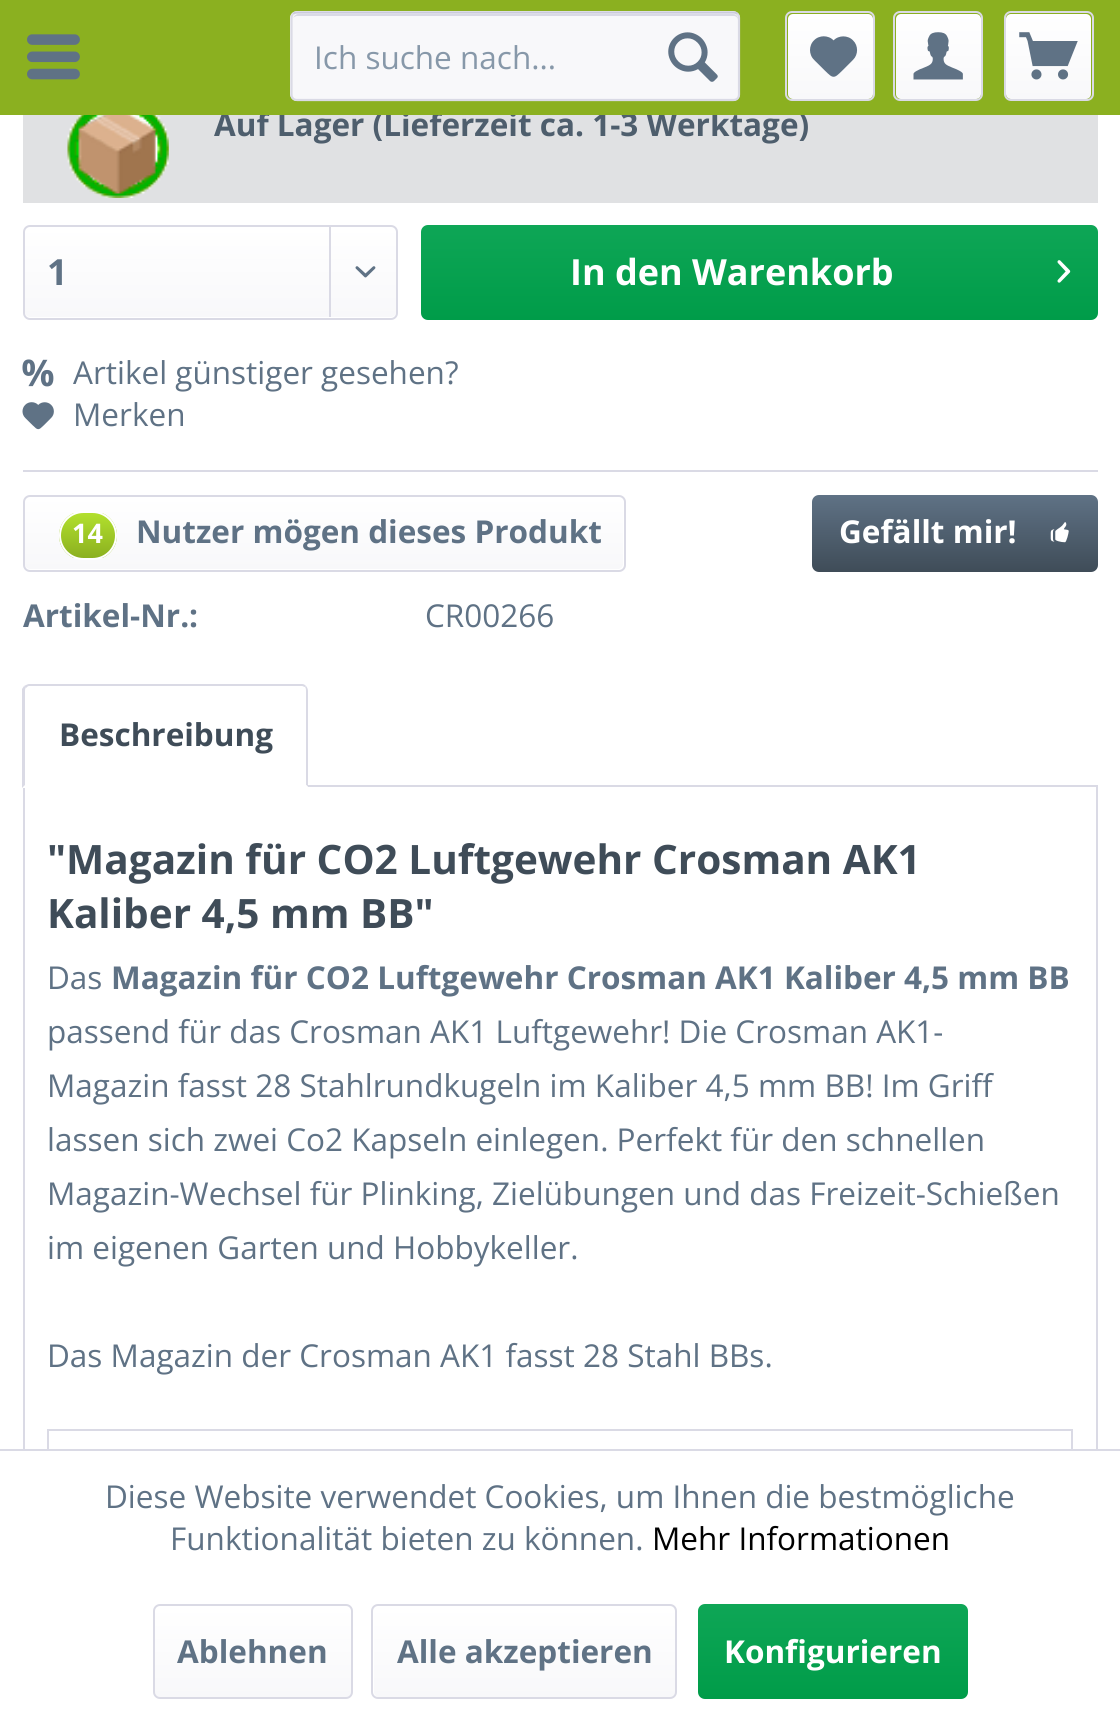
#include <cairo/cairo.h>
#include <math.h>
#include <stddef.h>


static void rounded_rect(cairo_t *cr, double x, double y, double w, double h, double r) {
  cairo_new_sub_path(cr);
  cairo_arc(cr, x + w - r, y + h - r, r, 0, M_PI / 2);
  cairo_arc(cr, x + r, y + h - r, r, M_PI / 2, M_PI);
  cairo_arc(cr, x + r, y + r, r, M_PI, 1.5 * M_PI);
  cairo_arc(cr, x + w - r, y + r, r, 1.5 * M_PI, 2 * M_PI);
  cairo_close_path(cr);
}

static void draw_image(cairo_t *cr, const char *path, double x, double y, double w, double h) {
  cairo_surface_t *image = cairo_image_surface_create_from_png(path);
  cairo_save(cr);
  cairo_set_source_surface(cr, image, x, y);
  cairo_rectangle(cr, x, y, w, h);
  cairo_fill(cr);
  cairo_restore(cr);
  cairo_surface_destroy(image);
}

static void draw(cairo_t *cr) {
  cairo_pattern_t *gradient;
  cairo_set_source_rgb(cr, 1, 1, 1);
  cairo_paint(cr);
  cairo_set_source_rgb(cr, 224 / 255.0, 225 / 255.0, 227 / 255.0);
  cairo_rectangle(cr, 23, 115, 1075, 88);
  cairo_fill(cr);
  draw_image(cr, "images/6.png", 67, 115, 102, 83);
  gradient = cairo_pattern_create_linear(210, 227, 210, 317);
  cairo_pattern_add_color_stop_rgba(gradient, 0, 1, 1, 1, 1);
  cairo_pattern_add_color_stop_rgba(gradient, 1, 248 / 255.0, 248 / 255.0, 250 / 255.0, 1);
  cairo_set_source(cr, gradient);
  cairo_pattern_destroy(gradient);
  rounded_rect(cr, 25, 227, 371, 90, 5);
  cairo_fill(cr);
  rounded_rect(cr, 24, 226, 373, 93, 6);
  cairo_set_source_rgb(cr, 218 / 255.0, 218 / 255.0, 229 / 255.0);
  cairo_stroke(cr);
  cairo_rectangle(cr, 329, 227, 2, 90);
  cairo_fill(cr);
  draw_image(cr, "images/7.png", 355, 266, 21, 12);
  gradient = cairo_pattern_create_linear(759, 225, 759, 320);
  cairo_pattern_add_color_stop_rgba(gradient, 0, 14 / 255.0, 166 / 255.0, 86 / 255.0, 1);
  cairo_pattern_add_color_stop_rgba(gradient, 1, 0, 156 / 255.0, 73 / 255.0, 1);
  cairo_set_source(cr, gradient);
  cairo_pattern_destroy(gradient);
  rounded_rect(cr, 421, 225, 677, 95, 7);
  cairo_fill(cr);
  draw_image(cr, "images/8.png", 1057, 260, 14, 23);
  draw_image(cr, "images/9.png", 22, 359, 32, 28);
  cairo_set_source_rgb(cr, 218 / 255.0, 218 / 255.0, 229 / 255.0);
  cairo_rectangle(cr, 23, 470, 1075, 2);
  cairo_fill(cr);
  draw_image(cr, "images/10.png", 22, 402, 32, 28);
  gradient = cairo_pattern_create_linear(324, 497, 324, 569);
  cairo_pattern_add_color_stop_rgba(gradient, 0, 1, 1, 1, 1);
  cairo_pattern_add_color_stop_rgba(gradient, 1, 248 / 255.0, 248 / 255.0, 250 / 255.0, 1);
  cairo_set_source(cr, gradient);
  cairo_pattern_destroy(gradient);
  rounded_rect(cr, 25, 497, 598, 72, 5);
  cairo_fill(cr);
  rounded_rect(cr, 24, 496, 601, 75, 6);
  cairo_set_source_rgb(cr, 218 / 255.0, 218 / 255.0, 229 / 255.0);
  cairo_stroke(cr);
  cairo_save(cr);
  rounded_rect(cr, 59, 511, 58, 49, 24.5);
  cairo_clip(cr);
  gradient = cairo_pattern_create_linear(88, 513, 88, 558);
  cairo_pattern_add_color_stop_rgba(gradient, 0, 178 / 255.0, 224 / 255.0, 45 / 255.0, 1);
  cairo_pattern_add_color_stop_rgba(gradient, 1, 139 / 255.0, 176 / 255.0, 32 / 255.0, 1);
  cairo_set_source(cr, gradient);
  cairo_pattern_destroy(gradient);
  cairo_rectangle(cr, 59, 513, 58, 45);
  cairo_fill(cr);
  cairo_restore(cr);
  rounded_rect(cr, 60, 512, 56, 47, 23.5);
  cairo_set_source_rgb(cr, 1, 1, 1);
  cairo_stroke(cr);
  gradient = cairo_pattern_create_linear(955, 495, 955, 572);
  cairo_pattern_add_color_stop_rgba(gradient, 0, 95 / 255.0, 114 / 255.0, 133 / 255.0, 1);
  cairo_pattern_add_color_stop_rgba(gradient, 1, 63 / 255.0, 76 / 255.0, 88 / 255.0, 1);
  cairo_set_source(cr, gradient);
  cairo_pattern_destroy(gradient);
  rounded_rect(cr, 812, 495, 286, 77, 7);
  cairo_fill(cr);
  draw_image(cr, "images/11.png", 1050, 522, 19, 21);
  cairo_rectangle(cr, 24, 786, 1073, 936);
  cairo_set_source_rgb(cr, 218 / 255.0, 218 / 255.0, 229 / 255.0);
  cairo_stroke(cr);
  cairo_set_source_rgb(cr, 1, 1, 1);
  cairo_new_path(cr);
  cairo_move_to(cr, 30, 684);
  cairo_line_to(cr, 301, 684);
  cairo_curve_to(cr, 305, 684, 308, 687, 308, 691);
  cairo_line_to(cr, 308, 788);
  cairo_line_to(cr, 23, 788);
  cairo_line_to(cr, 23, 691);
  cairo_curve_to(cr, 23, 687, 26, 684, 30, 684);
  cairo_close_path(cr);
  cairo_fill(cr);
  cairo_set_source_rgb(cr, 218 / 255.0, 218 / 255.0, 229 / 255.0);
  cairo_new_path(cr);
  cairo_move_to(cr, 29, 684);
  cairo_curve_to(cr, 28, 684, 26, 685, 24, 686);
  cairo_line_to(cr, 26, 688);
  cairo_curve_to(cr, 27, 687, 28, 686, 29, 686);
  cairo_line_to(cr, 302, 686);
  cairo_curve_to(cr, 303, 686, 304, 687, 305, 687);
  cairo_line_to(cr, 306, 686);
  cairo_curve_to(cr, 305, 685, 304, 684, 302, 684);
  cairo_close_path(cr);
  cairo_fill(cr);
  cairo_new_path(cr);
  cairo_move_to(cr, 306, 686);
  cairo_curve_to(cr, 307, 687, 308, 689, 308, 691);
  cairo_line_to(cr, 308, 787);
  cairo_line_to(cr, 306, 785);
  cairo_line_to(cr, 306, 691);
  cairo_curve_to(cr, 306, 690, 306, 688, 305, 687);
  cairo_close_path(cr);
  cairo_fill(cr);
  cairo_set_source_rgb(cr, 1, 1, 1);
  cairo_new_path(cr);
  cairo_move_to(cr, 308, 787);
  cairo_line_to(cr, 22, 788);
  cairo_line_to(cr, 25, 785);
  cairo_line_to(cr, 306, 785);
  cairo_close_path(cr);
  cairo_fill(cr);
  cairo_set_source_rgb(cr, 218 / 255.0, 218 / 255.0, 229 / 255.0);
  cairo_new_path(cr);
  cairo_move_to(cr, 22, 788);
  cairo_line_to(cr, 22, 689);
  cairo_line_to(cr, 24, 686);
  cairo_line_to(cr, 26, 688);
  cairo_curve_to(cr, 25, 688, 25, 690, 25, 691);
  cairo_line_to(cr, 25, 785);
  cairo_close_path(cr);
  cairo_fill(cr);
  cairo_rectangle(cr, 48, 1430, 1024, 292);
  cairo_stroke(cr);
  cairo_set_source_rgb(cr, 1, 1, 1);
  cairo_rectangle(cr, 23, 1451, 1075, 270);
  cairo_fill(cr);
  cairo_set_source_rgb(cr, 218 / 255.0, 218 / 255.0, 229 / 255.0);
  cairo_rectangle(cr, 0, 1449, 1120, 2);
  cairo_fill(cr);
  gradient = cairo_pattern_create_linear(253, 1607, 253, 1697);
  cairo_pattern_add_color_stop_rgba(gradient, 0, 1, 1, 1, 1);
  cairo_pattern_add_color_stop_rgba(gradient, 1, 248 / 255.0, 248 / 255.0, 250 / 255.0, 1);
  cairo_set_source(cr, gradient);
  cairo_pattern_destroy(gradient);
  rounded_rect(cr, 155, 1607, 196, 90, 5);
  cairo_fill(cr);
  rounded_rect(cr, 154, 1605, 198, 93, 6);
  cairo_set_source_rgb(cr, 218 / 255.0, 218 / 255.0, 229 / 255.0);
  cairo_stroke(cr);
  gradient = cairo_pattern_create_linear(524, 1607, 524, 1697);
  cairo_pattern_add_color_stop_rgba(gradient, 0, 1, 1, 1, 1);
  cairo_pattern_add_color_stop_rgba(gradient, 1, 248 / 255.0, 248 / 255.0, 250 / 255.0, 1);
  cairo_set_source(cr, gradient);
  cairo_pattern_destroy(gradient);
  rounded_rect(cr, 374, 1607, 301, 90, 5);
  cairo_fill(cr);
  rounded_rect(cr, 372, 1605, 304, 93, 6);
  cairo_set_source_rgb(cr, 218 / 255.0, 218 / 255.0, 229 / 255.0);
  cairo_stroke(cr);
  gradient = cairo_pattern_create_linear(833, 1604, 833, 1699);
  cairo_pattern_add_color_stop_rgba(gradient, 0, 14 / 255.0, 166 / 255.0, 86 / 255.0, 1);
  cairo_pattern_add_color_stop_rgba(gradient, 1, 0, 156 / 255.0, 73 / 255.0, 1);
  cairo_set_source(cr, gradient);
  cairo_pattern_destroy(gradient);
  rounded_rect(cr, 698, 1604, 270, 95, 7);
  cairo_fill(cr);
  cairo_select_font_face(cr, "Open Sans", CAIRO_FONT_SLANT_NORMAL, CAIRO_FONT_WEIGHT_BOLD);
  cairo_set_font_size(cr, 31.5);
  cairo_set_source_rgb(cr, 78 / 255.0, 94 / 255.0, 109 / 255.0);
  cairo_move_to(cr, 214, 136);
  cairo_show_text(cr, "Auf Lager (Lieferzeit ca. 1-3 Werktage)");
  cairo_set_source_rgb(cr, 139 / 255.0, 176 / 255.0, 32 / 255.0);
  cairo_rectangle(cr, 0, 0, 1120, 115);
  cairo_fill(cr);
  cairo_set_source_rgb(cr, 248 / 255.0, 248 / 255.0, 250 / 255.0);
  rounded_rect(cr, 290, 11, 450, 90, 7);
  cairo_fill(cr);
  cairo_set_source_rgb(cr, 218 / 255.0, 218 / 255.0, 229 / 255.0);
  cairo_new_path(cr);
  cairo_move_to(cr, 297, 16);
  cairo_line_to(cr, 734, 16);
  cairo_curve_to(cr, 736, 16, 738, 18, 738, 20);
  cairo_line_to(cr, 738, 19);
  cairo_curve_to(cr, 738, 16, 736, 14, 733, 14);
  cairo_line_to(cr, 298, 14);
  cairo_curve_to(cr, 296, 14, 294, 16, 293, 18);
  cairo_curve_to(cr, 294, 17, 296, 16, 297, 16);
  cairo_close_path(cr);
  cairo_fill(cr);
  cairo_new_path(cr);
  cairo_move_to(cr, 293, 14);
  cairo_curve_to(cr, 294, 13, 295.5, 12.5, 297, 12.5);
  cairo_line_to(cr, 733.5, 12.5);
  cairo_curve_to(cr, 735, 12.5, 736.5, 13, 737.5, 14);
  cairo_set_source_rgb(cr, 203 / 255.0, 203 / 255.0, 219 / 255.0);
  cairo_set_line_width(cr, 2.2);
  cairo_stroke(cr);
  cairo_new_path(cr);
  cairo_move_to(cr, 737.5, 14);
  cairo_curve_to(cr, 738.5, 15, 739, 16.5, 739, 18);
  cairo_line_to(cr, 739, 94.5);
  cairo_curve_to(cr, 739, 96, 738.5, 97.5, 737.5, 98.5);
  cairo_curve_to(cr, 736.5, 99.5, 735, 100, 733.5, 100);
  cairo_line_to(cr, 297, 100);
  cairo_curve_to(cr, 295.5, 100, 294, 99.5, 293, 98.5);
  cairo_curve_to(cr, 292, 97.5, 291.5, 96, 291.5, 94.5);
  cairo_line_to(cr, 291.5, 18);
  cairo_curve_to(cr, 291.5, 16.5, 292, 15, 293, 14);
  cairo_set_source_rgb(cr, 218 / 255.0, 218 / 255.0, 229 / 255.0);
  cairo_stroke(cr);
  draw_image(cr, "images/2.png", 668, 32, 50, 50);
  cairo_select_font_face(cr, "Open Sans", CAIRO_FONT_SLANT_NORMAL, CAIRO_FONT_WEIGHT_NORMAL);
  cairo_set_source_rgb(cr, 135 / 255.0, 152 / 255.0, 169 / 255.0);
  cairo_move_to(cr, 314, 69);
  cairo_show_text(cr, "Ich suche nach...");
  gradient = cairo_pattern_create_linear(1049, 13, 1049, 99);
  cairo_pattern_add_color_stop_rgba(gradient, 0, 1, 1, 1, 1);
  cairo_pattern_add_color_stop_rgba(gradient, 1, 248 / 255.0, 248 / 255.0, 250 / 255.0, 1);
  cairo_set_source(cr, gradient);
  cairo_pattern_destroy(gradient);
  rounded_rect(cr, 1006, 14, 85, 85, 5);
  cairo_fill(cr);
  rounded_rect(cr, 1005, 12, 88, 88, 6);
  cairo_set_source_rgb(cr, 218 / 255.0, 218 / 255.0, 229 / 255.0);
  cairo_set_line_width(cr, 2);
  cairo_stroke(cr);
  draw_image(cr, "images/5.png", 1019, 32, 59, 48);
  gradient = cairo_pattern_create_linear(938, 13, 938, 99);
  cairo_pattern_add_color_stop_rgba(gradient, 0, 1, 1, 1, 1);
  cairo_pattern_add_color_stop_rgba(gradient, 1, 248 / 255.0, 248 / 255.0, 250 / 255.0, 1);
  cairo_set_source(cr, gradient);
  cairo_pattern_destroy(gradient);
  rounded_rect(cr, 896, 14, 85, 85, 5);
  cairo_fill(cr);
  rounded_rect(cr, 894, 12, 88, 88, 6);
  cairo_set_source_rgb(cr, 218 / 255.0, 218 / 255.0, 229 / 255.0);
  cairo_stroke(cr);
  draw_image(cr, "images/4.png", 913, 32, 50, 48);
  gradient = cairo_pattern_create_linear(830, 13, 830, 99);
  cairo_pattern_add_color_stop_rgba(gradient, 0, 1, 1, 1, 1);
  cairo_pattern_add_color_stop_rgba(gradient, 1, 248 / 255.0, 248 / 255.0, 250 / 255.0, 1);
  cairo_set_source(cr, gradient);
  cairo_pattern_destroy(gradient);
  rounded_rect(cr, 788, 14, 85, 85, 5);
  cairo_fill(cr);
  rounded_rect(cr, 786, 12, 88, 88, 6);
  cairo_set_source_rgb(cr, 218 / 255.0, 218 / 255.0, 229 / 255.0);
  cairo_stroke(cr);
  draw_image(cr, "images/3.png", 810, 36, 48, 41);
  draw_image(cr, "images/1.png", 27, 34, 53, 46);
  cairo_select_font_face(cr, "Open Sans", CAIRO_FONT_SLANT_NORMAL, CAIRO_FONT_WEIGHT_BOLD);
  cairo_set_font_size(cr, 36);
  cairo_set_source_rgb(cr, 95 / 255.0, 114 / 255.0, 133 / 255.0);
  cairo_move_to(cr, 47, 285);
  cairo_show_text(cr, "1");
  cairo_set_source_rgb(cr, 1, 1, 1);
  cairo_move_to(cr, 570, 285);
  cairo_show_text(cr, "In den Warenkorb");
  cairo_select_font_face(cr, "Open Sans", CAIRO_FONT_SLANT_NORMAL, CAIRO_FONT_WEIGHT_NORMAL);
  cairo_set_font_size(cr, 31.5);
  cairo_set_source_rgb(cr, 95 / 255.0, 114 / 255.0, 133 / 255.0);
  cairo_move_to(cr, 73, 384);
  cairo_show_text(cr, "Artikel günstiger gesehen?");
  cairo_move_to(cr, 73, 426);
  cairo_show_text(cr, "Merken");
  cairo_select_font_face(cr, "Open Sans", CAIRO_FONT_SLANT_NORMAL, CAIRO_FONT_WEIGHT_BOLD);
  cairo_set_font_size(cr, 27);
  cairo_set_source_rgb(cr, 1, 1, 1);
  cairo_move_to(cr, 72, 543);
  cairo_show_text(cr, "14");
  cairo_set_font_size(cr, 31.5);
  cairo_set_source_rgb(cr, 95 / 255.0, 114 / 255.0, 133 / 255.0);
  cairo_move_to(cr, 136, 543);
  cairo_show_text(cr, "Nutzer mögen dieses Produkt");
  cairo_set_source_rgb(cr, 1, 1, 1);
  cairo_move_to(cr, 839, 543);
  cairo_show_text(cr, "Gefällt mir!");
  cairo_set_source_rgb(cr, 95 / 255.0, 114 / 255.0, 133 / 255.0);
  cairo_move_to(cr, 23, 627);
  cairo_show_text(cr, "Artikel-Nr.:");
  cairo_select_font_face(cr, "Open Sans", CAIRO_FONT_SLANT_NORMAL, CAIRO_FONT_WEIGHT_NORMAL);
  cairo_move_to(cr, 425, 627);
  cairo_show_text(cr, "CR00266");
  cairo_select_font_face(cr, "Open Sans", CAIRO_FONT_SLANT_NORMAL, CAIRO_FONT_WEIGHT_BOLD);
  cairo_set_source_rgb(cr, 63 / 255.0, 76 / 255.0, 88 / 255.0);
  cairo_move_to(cr, 59, 746);
  cairo_show_text(cr, "Beschreibung");
  cairo_set_font_size(cr, 40.5);
  cairo_move_to(cr, 47, 874);
  cairo_show_text(cr, "\"Magazin für CO2 Luftgewehr Crosman AK1");
  cairo_move_to(cr, 47, 928);
  cairo_show_text(cr, "Kaliber 4,5 mm BB\"");
  cairo_select_font_face(cr, "Open Sans", CAIRO_FONT_SLANT_NORMAL, CAIRO_FONT_WEIGHT_NORMAL);
  cairo_set_font_size(cr, 31.5);
  cairo_set_source_rgb(cr, 95 / 255.0, 114 / 255.0, 133 / 255.0);
  cairo_move_to(cr, 47, 989);
  cairo_show_text(cr, "Das");
  cairo_select_font_face(cr, "Open Sans", CAIRO_FONT_SLANT_NORMAL, CAIRO_FONT_WEIGHT_BOLD);
  cairo_move_to(cr, 111, 989);
  cairo_show_text(cr, "Magazin für CO2 Luftgewehr Crosman AK1 Kaliber 4,5 mm BB");
  cairo_select_font_face(cr, "Open Sans", CAIRO_FONT_SLANT_NORMAL, CAIRO_FONT_WEIGHT_NORMAL);
  cairo_move_to(cr, 47, 1043);
  cairo_show_text(cr, "passend für das Crosman AK1 Luftgewehr! Die Crosman AK1-");
  cairo_move_to(cr, 47, 1097);
  cairo_show_text(cr, "Magazin fasst 28 Stahlrundkugeln im Kaliber 4,5 mm BB! Im Griff");
  cairo_move_to(cr, 47, 1151);
  cairo_show_text(cr, "lassen sich zwei Co2 Kapseln einlegen. Perfekt für den schnellen");
  cairo_move_to(cr, 47, 1205);
  cairo_show_text(cr, "Magazin-Wechsel für Plinking, Zielübungen und das Freizeit-Schießen");
  cairo_move_to(cr, 47, 1259);
  cairo_show_text(cr, "im eigenen Garten und Hobbykeller.");
  cairo_move_to(cr, 47, 1367);
  cairo_show_text(cr, "Das Magazin der Crosman AK1 fasst 28 Stahl BBs.");
  cairo_move_to(cr, 105, 1508);
  cairo_show_text(cr, "Diese Website verwendet Cookies, um Ihnen die bestmögliche");
  cairo_move_to(cr, 170, 1550);
  cairo_show_text(cr, "Funktionalität bieten zu können.");
  cairo_set_source_rgb(cr, 0, 0, 0);
  cairo_move_to(cr, 652, 1550);
  cairo_show_text(cr, "Mehr Informationen");
  cairo_select_font_face(cr, "Open Sans", CAIRO_FONT_SLANT_NORMAL, CAIRO_FONT_WEIGHT_BOLD);
  cairo_set_source_rgb(cr, 95 / 255.0, 114 / 255.0, 133 / 255.0);
  cairo_move_to(cr, 177, 1663);
  cairo_show_text(cr, "Ablehnen");
  cairo_move_to(cr, 397, 1663);
  cairo_show_text(cr, "Alle akzeptieren");
  cairo_set_source_rgb(cr, 1, 1, 1);
  cairo_move_to(cr, 724, 1663);
  cairo_show_text(cr, "Konfigurieren");
}

int main(void) {
  cairo_surface_t *surface = cairo_image_surface_create(CAIRO_FORMAT_RGB24, 1120, 1721);
  cairo_t *cr = cairo_create(surface);
  cairo_font_options_t *options = cairo_font_options_create();
  cairo_font_options_set_hint_metrics(options, CAIRO_HINT_METRICS_OFF);
  cairo_font_options_set_hint_style(options, CAIRO_HINT_STYLE_NONE);
  cairo_set_font_options(cr, options);
  cairo_set_miter_limit(cr, 4);
  draw(cr);
  cairo_surface_write_to_png(surface, "out.png");
  cairo_font_options_destroy(options);
  cairo_destroy(cr);
  cairo_surface_destroy(surface);
  return 0;
}
